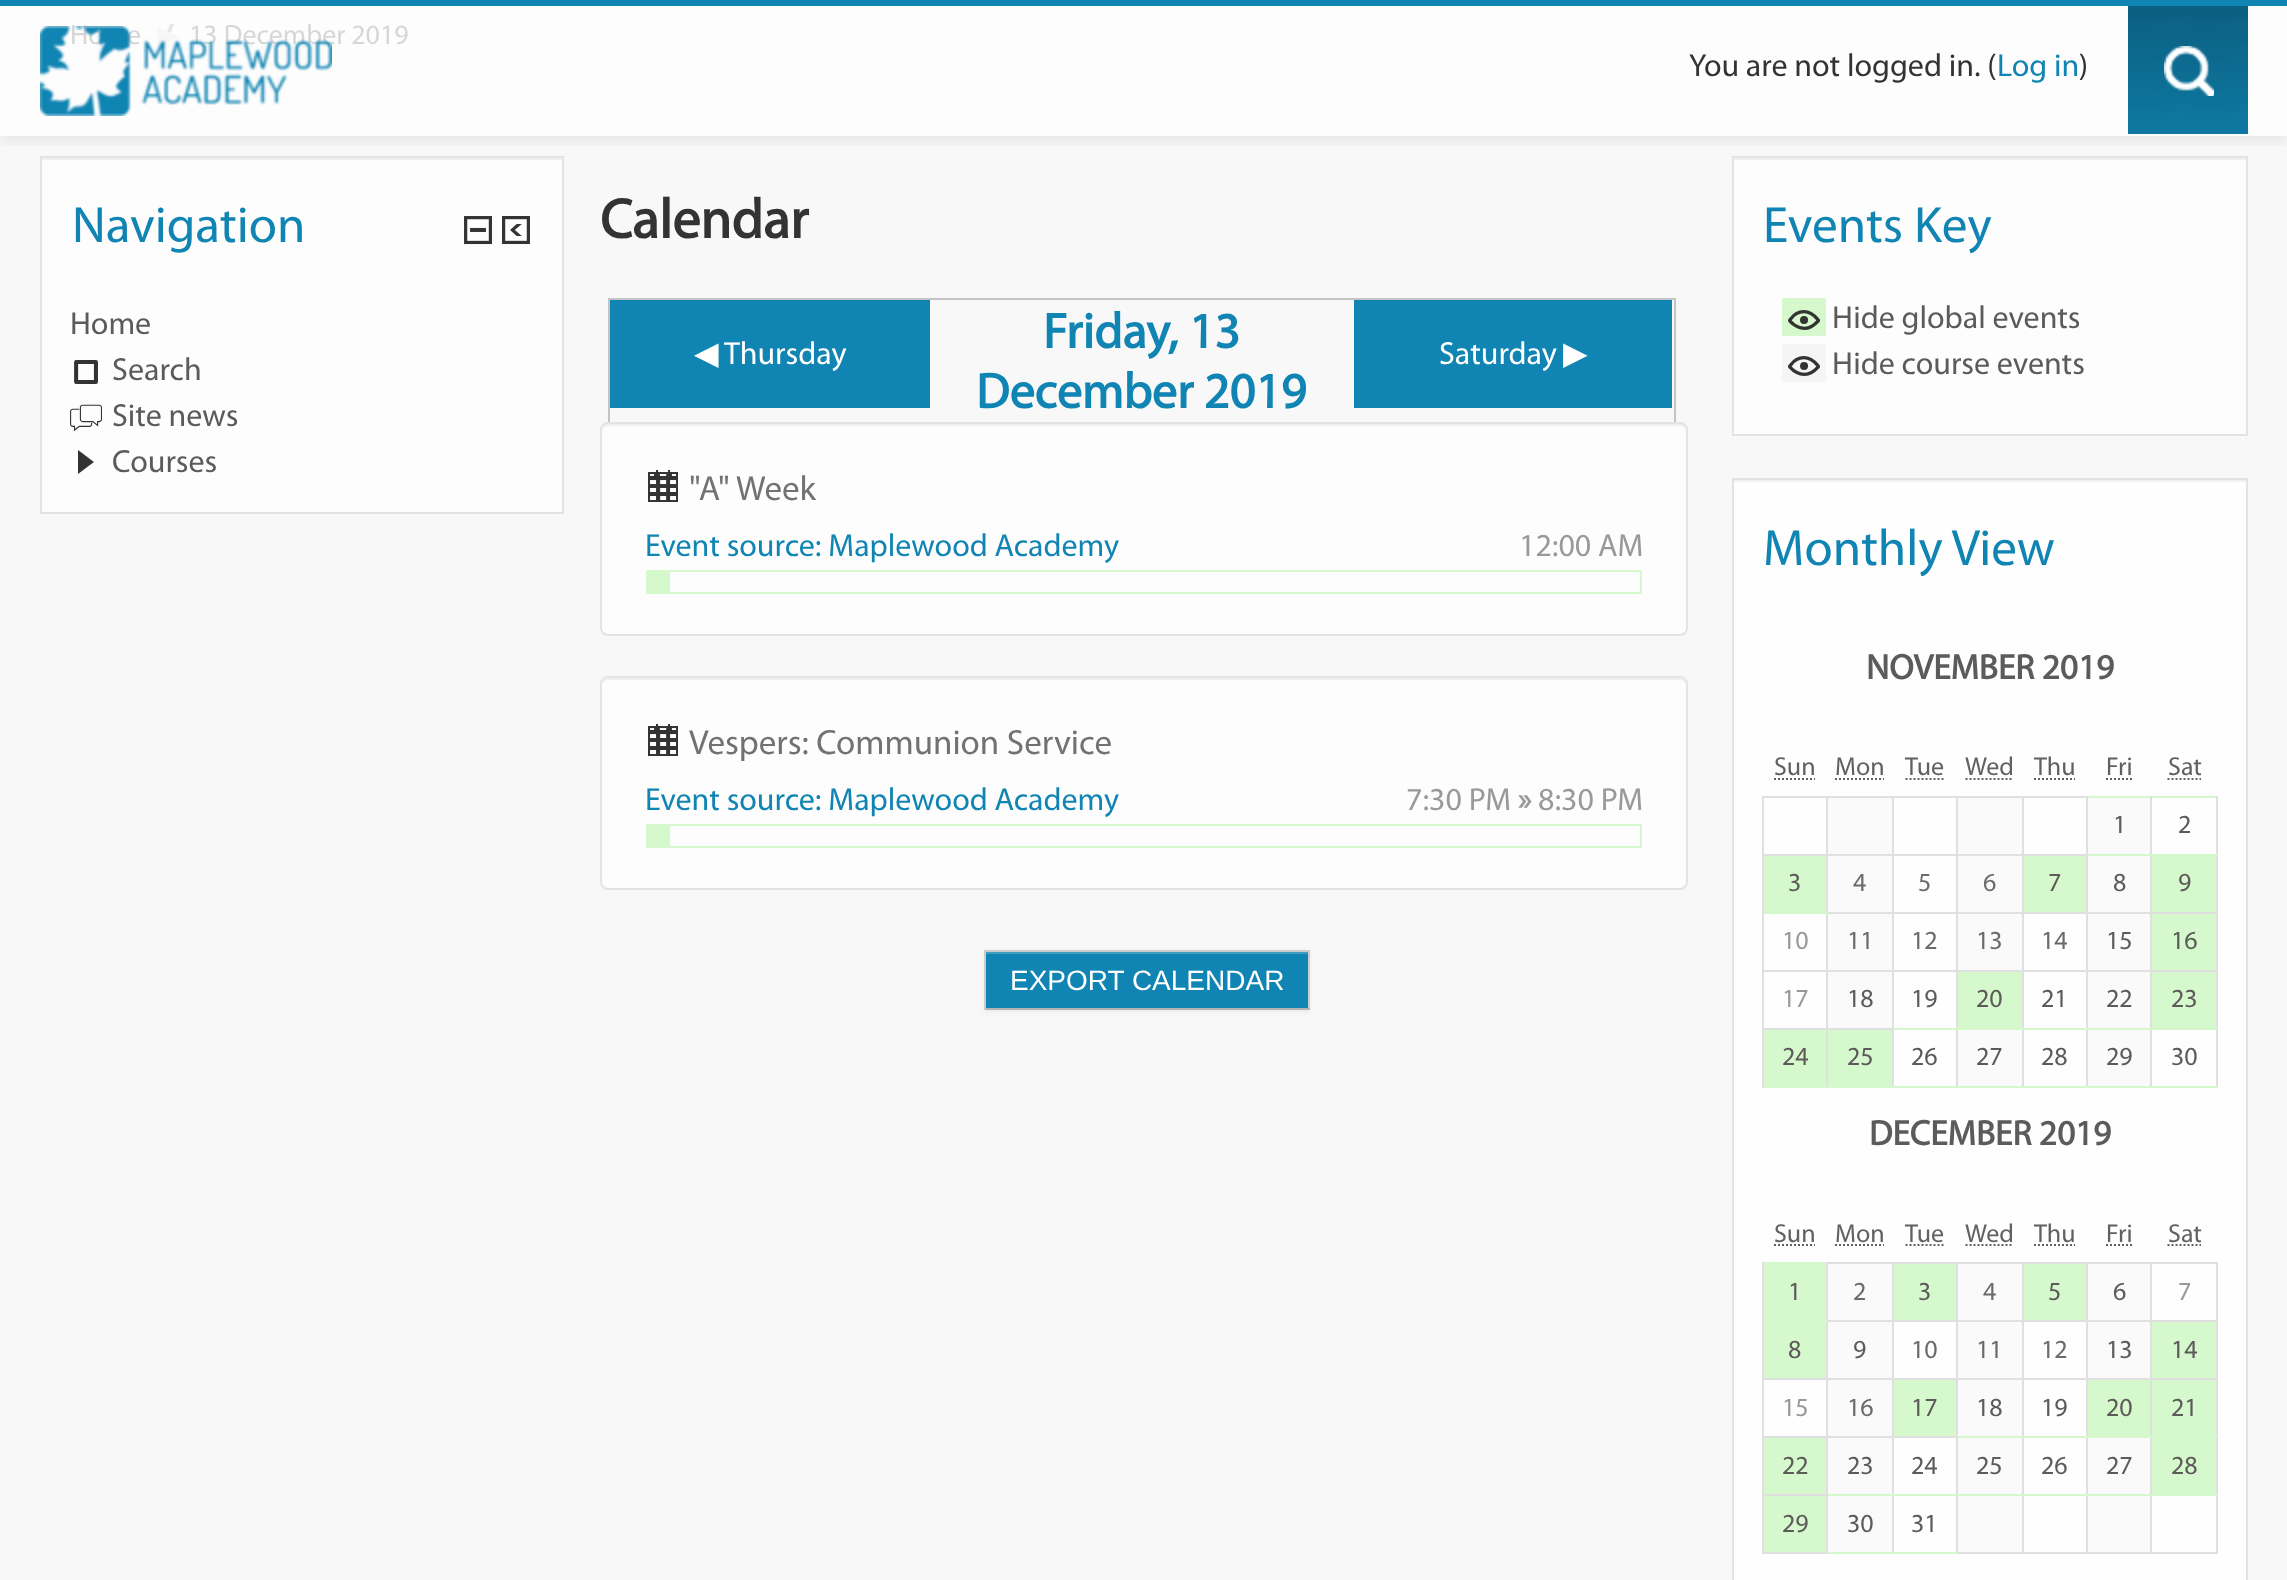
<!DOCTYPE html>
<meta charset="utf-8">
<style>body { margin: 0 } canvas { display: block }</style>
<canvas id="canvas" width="2287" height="1580"></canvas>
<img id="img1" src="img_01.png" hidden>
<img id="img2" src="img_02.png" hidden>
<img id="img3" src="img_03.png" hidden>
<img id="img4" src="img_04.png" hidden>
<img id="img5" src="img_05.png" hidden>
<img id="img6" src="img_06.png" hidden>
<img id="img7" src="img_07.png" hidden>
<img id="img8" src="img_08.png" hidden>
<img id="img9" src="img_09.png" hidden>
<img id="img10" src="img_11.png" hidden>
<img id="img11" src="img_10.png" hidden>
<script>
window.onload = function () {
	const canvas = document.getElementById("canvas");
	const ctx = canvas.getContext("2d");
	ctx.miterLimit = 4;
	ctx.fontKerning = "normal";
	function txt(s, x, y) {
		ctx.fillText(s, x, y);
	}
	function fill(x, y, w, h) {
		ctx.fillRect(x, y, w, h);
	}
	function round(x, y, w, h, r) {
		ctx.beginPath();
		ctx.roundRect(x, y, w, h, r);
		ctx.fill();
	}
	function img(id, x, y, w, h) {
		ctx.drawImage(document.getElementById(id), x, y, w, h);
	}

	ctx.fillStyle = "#F8F8F8";
	fill(0, 0, 2287, 1580);
	ctx.fillStyle = "#FDFDFD";
	fill(0, 6, 2287, 130);
	img("img1", 160, 24, 14, 24);
	fill(42, 160, 520, 352);
	ctx.fillStyle = "#F0F0F0";
	fill(42, 158, 520, 2);
	ctx.strokeStyle = "#E3E3E3";
	ctx.lineWidth = 2;
	ctx.strokeRect(41, 157, 522, 356);
	img("img2", 464, 216, 28, 29);
	img("img3", 502, 216, 28, 29);
	img("img4", 74, 360, 24, 24);
	img("img5", 70, 404, 32, 28);
	img("img6", 78, 450, 16, 24);
	ctx.fillStyle = "#C4C4C4";
	fill(608, 298, 1068, 2);
	fill(1674, 298, 2, 124);
	fill(608, 298, 2, 124);
	ctx.fillStyle = "#1084B2";
	fill(610, 300, 320, 108);
	fill(1354, 300, 318, 108);
	ctx.fillStyle = "#FDFDFD";
	round(600, 422, 1088, 214, 8);
	ctx.fillStyle = "#F0F0F0";
	ctx.beginPath();
	ctx.moveTo(608, 426);
	ctx.lineTo(1680, 426);
	ctx.bezierCurveTo(1683, 426, 1686, 429, 1686, 432);
	ctx.lineTo(1686, 430);
	ctx.bezierCurveTo(1686, 427, 1683, 424, 1680, 424);
	ctx.lineTo(608, 424);
	ctx.bezierCurveTo(605, 424, 602, 427, 602, 430);
	ctx.lineTo(602, 432);
	ctx.bezierCurveTo(602, 429, 605, 426, 608, 426);
	ctx.closePath();
	ctx.fill();
	ctx.beginPath();
	ctx.roundRect(601, 423, 1086, 212, 7);
	ctx.stroke();
	img("img7", 648, 470, 30, 32);
	ctx.fillStyle = "#D6F8CD";
	fill(670, 570, 972, 2);
	fill(1640, 570, 2, 24);
	fill(670, 592, 972, 2);
	fill(646, 570, 24, 24);
	ctx.fillStyle = "#FDFDFD";
	round(600, 676, 1088, 214, 8);
	ctx.fillStyle = "#F0F0F0";
	ctx.beginPath();
	ctx.moveTo(608, 680);
	ctx.lineTo(1680, 680);
	ctx.bezierCurveTo(1683, 680, 1686, 683, 1686, 686);
	ctx.lineTo(1686, 684);
	ctx.bezierCurveTo(1686, 681, 1683, 678, 1680, 678);
	ctx.lineTo(608, 678);
	ctx.bezierCurveTo(605, 678, 602, 681, 602, 684);
	ctx.lineTo(602, 686);
	ctx.bezierCurveTo(602, 683, 605, 680, 608, 680);
	ctx.closePath();
	ctx.fill();
	ctx.beginPath();
	ctx.roundRect(601, 677, 1086, 212, 7);
	ctx.stroke();
	img("img7", 648, 724, 30, 32);
	ctx.fillStyle = "#D6F8CD";
	fill(670, 824, 972, 2);
	fill(1640, 824, 2, 24);
	fill(670, 846, 972, 2);
	fill(646, 824, 24, 24);
	ctx.fillStyle = "rgba(0, 0, 0, 0.05)";
	ctx.filter = "blur(2px)";
	ctx.beginPath();
	ctx.rect(984, 952, 326, 60);
	ctx.fill();
	ctx.filter = "none";
	ctx.fillStyle = "#1084B2";
	fill(986, 954, 322, 54);
	ctx.fillStyle = "#409DC1";
	fill(986, 952, 322, 2);
	ctx.fillStyle = "#CCCCCC";
	fill(984, 950, 326, 2);
	fill(1308, 950, 2, 60);
	ctx.fillStyle = "#B3B3B3";
	fill(984, 1008, 326, 2);
	ctx.fillStyle = "#CCCCCC";
	fill(984, 950, 2, 60);
	ctx.fillStyle = "#FDFDFD";
	fill(1734, 160, 512, 274);
	ctx.fillStyle = "#F0F0F0";
	fill(1734, 158, 512, 2);
	ctx.strokeRect(1733, 157, 514, 278);
	ctx.fillStyle = "#D6F8CD";
	fill(1782, 298, 44, 38);
	img("img8", 1788, 310, 32, 20);
	ctx.fillStyle = "#F5F5F5";
	fill(1782, 344, 44, 38);
	img("img9", 1788, 356, 32, 20);
	ctx.fillStyle = "#FEFEFE";
	fill(1734, 482, 512, 1098);
	ctx.fillStyle = "#F1F1F1";
	fill(1734, 480, 512, 2);
	ctx.strokeRect(1733, 479, 514, 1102);
	ctx.beginPath();
	ctx.moveTo(1774, 779);
	ctx.lineTo(1815, 779);
	ctx.strokeStyle = "#616161";
	ctx.setLineDash([2, 2]);
	ctx.stroke();
	ctx.beginPath();
	ctx.moveTo(1835, 779);
	ctx.lineTo(1884, 779);
	ctx.stroke();
	ctx.beginPath();
	ctx.moveTo(1905.5, 779);
	ctx.lineTo(1944, 779);
	ctx.stroke();
	ctx.beginPath();
	ctx.moveTo(1965.5, 779);
	ctx.lineTo(2013.5, 779);
	ctx.stroke();
	ctx.beginPath();
	ctx.moveTo(2034, 779);
	ctx.lineTo(2075, 779);
	ctx.stroke();
	ctx.beginPath();
	ctx.moveTo(2106, 779);
	ctx.lineTo(2132.5, 779);
	ctx.stroke();
	ctx.beginPath();
	ctx.moveTo(2167.5, 779);
	ctx.lineTo(2201, 779);
	ctx.stroke();
	ctx.fillStyle = "#D6F8CD";
	fill(2086, 796, 132, 2);
	ctx.fillStyle = "#E0E0E0";
	fill(2150, 912, 68, 2);
	fill(2216, 970, 2, 118);
	fill(2216, 854, 2, 118);
	fill(2216, 796, 2, 60);
	ctx.fillStyle = "#D6F8CD";
	fill(2150, 1086, 68, 2);
	ctx.fillStyle = "#E0E0E0";
	fill(2150, 1028, 2, 60);
	ctx.fillStyle = "#D6F8CD";
	fill(2150, 1028, 68, 2);
	ctx.fillStyle = "#E0E0E0";
	fill(2150, 970, 2, 60);
	fill(2150, 970, 68, 2);
	fill(2150, 912, 2, 60);
	fill(2086, 912, 66, 2);
	fill(2150, 854, 2, 60);
	ctx.fillStyle = "#D6F8CD";
	fill(2150, 854, 68, 2);
	ctx.fillStyle = "#E0E0E0";
	fill(2150, 796, 2, 60);
	ctx.fillStyle = "#D6F8CD";
	fill(2086, 1086, 66, 2);
	ctx.fillStyle = "#E0E0E0";
	fill(2086, 1028, 2, 60);
	ctx.fillStyle = "#D6F8CD";
	fill(2086, 1028, 66, 2);
	ctx.fillStyle = "#E0E0E0";
	fill(2086, 970, 2, 60);
	fill(2086, 970, 66, 2);
	fill(2086, 912, 2, 60);
	fill(2022, 912, 66, 2);
	fill(2086, 854, 2, 60);
	fill(2022, 854, 66, 2);
	ctx.fillStyle = "#D6F8CD";
	fill(2086, 854, 66, 2);
	ctx.fillStyle = "#E0E0E0";
	fill(2086, 796, 2, 60);
	fill(2022, 796, 66, 2);
	ctx.fillStyle = "#D6F8CD";
	fill(2022, 1086, 66, 2);
	ctx.fillStyle = "#E0E0E0";
	fill(2022, 1028, 2, 60);
	ctx.fillStyle = "#D6F8CD";
	fill(2022, 1028, 66, 2);
	ctx.fillStyle = "#E0E0E0";
	fill(2022, 970, 2, 60);
	fill(2022, 970, 66, 2);
	fill(2022, 912, 2, 60);
	fill(1956, 912, 68, 2);
	fill(2022, 854, 2, 60);
	fill(1956, 854, 68, 2);
	fill(2022, 796, 2, 60);
	fill(1956, 796, 68, 2);
	ctx.fillStyle = "#D6F8CD";
	fill(1956, 1086, 68, 2);
	ctx.fillStyle = "#E0E0E0";
	fill(1956, 1028, 2, 60);
	ctx.fillStyle = "#D6F8CD";
	fill(1956, 1028, 68, 2);
	ctx.fillStyle = "#E0E0E0";
	fill(1956, 970, 2, 60);
	fill(1956, 970, 68, 2);
	fill(1956, 912, 2, 60);
	fill(1892, 912, 66, 2);
	fill(1956, 854, 2, 60);
	fill(1892, 854, 66, 2);
	fill(1956, 796, 2, 60);
	fill(1892, 796, 66, 2);
	ctx.fillStyle = "#D6F8CD";
	fill(1892, 1086, 66, 2);
	ctx.fillStyle = "#E0E0E0";
	fill(1892, 1028, 2, 60);
	ctx.fillStyle = "#D6F8CD";
	fill(1892, 1028, 66, 2);
	ctx.fillStyle = "#E0E0E0";
	fill(1892, 970, 2, 60);
	fill(1826, 970, 68, 2);
	fill(1892, 970, 66, 2);
	fill(1892, 912, 2, 60);
	fill(1826, 912, 68, 2);
	fill(1892, 854, 2, 60);
	fill(1826, 854, 68, 2);
	fill(1892, 796, 2, 60);
	fill(1826, 796, 68, 2);
	ctx.fillStyle = "#D6F8CD";
	fill(1826, 1086, 68, 2);
	ctx.fillStyle = "#E0E0E0";
	fill(1826, 1028, 2, 60);
	fill(1826, 1028, 68, 2);
	fill(1826, 970, 2, 60);
	fill(1762, 970, 66, 2);
	fill(1826, 912, 2, 60);
	fill(1826, 854, 2, 60);
	fill(1826, 796, 2, 60);
	fill(1762, 796, 66, 2);
	ctx.fillStyle = "#D6F8CD";
	fill(1762, 1086, 66, 2);
	ctx.fillStyle = "#E0E0E0";
	fill(1762, 1028, 2, 60);
	fill(1762, 1028, 66, 2);
	fill(1762, 912, 2, 118);
	ctx.fillStyle = "#D6F8CD";
	fill(1762, 912, 66, 2);
	ctx.fillStyle = "#E0E0E0";
	fill(1762, 854, 2, 60);
	fill(1762, 854, 66, 2);
	fill(1762, 796, 2, 60);
	ctx.fillStyle = "#FAFAFA";
	fill(1828, 798, 64, 56);
	fill(1958, 798, 64, 56);
	fill(2088, 798, 62, 56);
	ctx.fillStyle = "#D6F8CD";
	fill(1764, 856, 62, 56);
	ctx.fillStyle = "#FAFAFA";
	fill(1828, 856, 64, 56);
	fill(1958, 856, 64, 56);
	ctx.fillStyle = "#D6F8CD";
	fill(2024, 856, 62, 56);
	ctx.fillStyle = "#FAFAFA";
	fill(2088, 856, 62, 56);
	ctx.fillStyle = "#D6F8CD";
	fill(2152, 856, 64, 56);
	ctx.fillStyle = "#FAFAFA";
	fill(1828, 914, 64, 56);
	fill(1958, 914, 64, 56);
	fill(2088, 914, 62, 56);
	ctx.fillStyle = "#D6F8CD";
	fill(2152, 914, 64, 56);
	ctx.fillStyle = "#FAFAFA";
	fill(1828, 972, 64, 56);
	ctx.fillStyle = "#D6F8CD";
	fill(1958, 972, 64, 56);
	ctx.fillStyle = "#FAFAFA";
	fill(2088, 972, 62, 56);
	ctx.fillStyle = "#D6F8CD";
	fill(2152, 972, 64, 56);
	fill(1764, 1030, 62, 56);
	fill(1828, 1030, 64, 56);
	ctx.fillStyle = "#FAFAFA";
	fill(1958, 1030, 64, 56);
	fill(2088, 1030, 62, 56);
	ctx.beginPath();
	ctx.moveTo(1774, 1245);
	ctx.lineTo(1815, 1245);
	ctx.stroke();
	ctx.beginPath();
	ctx.moveTo(1835, 1245);
	ctx.lineTo(1884, 1245);
	ctx.stroke();
	ctx.beginPath();
	ctx.moveTo(1905.5, 1245);
	ctx.lineTo(1944, 1245);
	ctx.stroke();
	ctx.beginPath();
	ctx.moveTo(1965.5, 1245);
	ctx.lineTo(2013.5, 1245);
	ctx.stroke();
	ctx.beginPath();
	ctx.moveTo(2034, 1245);
	ctx.lineTo(2075, 1245);
	ctx.stroke();
	ctx.beginPath();
	ctx.moveTo(2106, 1245);
	ctx.lineTo(2132.5, 1245);
	ctx.stroke();
	ctx.beginPath();
	ctx.moveTo(2167.5, 1245);
	ctx.lineTo(2201, 1245);
	ctx.stroke();
	ctx.fillStyle = "#D6F8CD";
	fill(1764, 1264, 62, 56);
	ctx.fillStyle = "#E0E0E0";
	fill(2150, 1262, 68, 2);
	fill(2150, 1320, 68, 2);
	fill(2216, 1378, 2, 176);
	fill(2216, 1320, 2, 60);
	fill(2150, 1552, 68, 2);
	fill(2150, 1494, 2, 60);
	ctx.fillStyle = "#D6F8CD";
	fill(2150, 1494, 68, 2);
	ctx.fillStyle = "#E0E0E0";
	fill(2150, 1436, 2, 60);
	ctx.fillStyle = "#D6F8CD";
	fill(2150, 1436, 68, 2);
	ctx.fillStyle = "#E0E0E0";
	fill(2150, 1378, 2, 60);
	fill(2150, 1378, 68, 2);
	fill(2150, 1320, 2, 60);
	fill(2086, 1320, 66, 2);
	fill(2150, 1262, 2, 60);
	fill(2086, 1262, 66, 2);
	fill(2086, 1552, 66, 2);
	fill(2086, 1494, 2, 60);
	ctx.fillStyle = "#D6F8CD";
	fill(2086, 1494, 66, 2);
	ctx.fillStyle = "#E0E0E0";
	fill(2086, 1436, 2, 60);
	ctx.fillStyle = "#D6F8CD";
	fill(2086, 1436, 66, 2);
	ctx.fillStyle = "#E0E0E0";
	fill(2086, 1378, 2, 60);
	fill(2086, 1378, 66, 2);
	fill(2086, 1320, 2, 60);
	fill(2022, 1320, 66, 2);
	fill(2086, 1262, 2, 60);
	fill(2022, 1262, 66, 2);
	fill(2022, 1552, 66, 2);
	fill(2022, 1494, 2, 60);
	ctx.fillStyle = "#D6F8CD";
	fill(2022, 1494, 66, 2);
	ctx.fillStyle = "#E0E0E0";
	fill(2022, 1436, 2, 60);
	ctx.fillStyle = "#D6F8CD";
	fill(2022, 1436, 66, 2);
	ctx.fillStyle = "#E0E0E0";
	fill(2022, 1378, 2, 60);
	fill(2022, 1378, 66, 2);
	fill(2022, 1320, 2, 60);
	fill(1956, 1320, 68, 2);
	fill(2022, 1262, 2, 60);
	fill(1956, 1262, 68, 2);
	fill(1956, 1552, 68, 2);
	fill(1956, 1494, 2, 60);
	ctx.fillStyle = "#D6F8CD";
	fill(1956, 1494, 68, 2);
	ctx.fillStyle = "#E0E0E0";
	fill(1956, 1436, 2, 60);
	ctx.fillStyle = "#D6F8CD";
	fill(1956, 1436, 68, 2);
	ctx.fillStyle = "#E0E0E0";
	fill(1956, 1378, 2, 60);
	fill(1892, 1378, 66, 2);
	fill(1956, 1378, 68, 2);
	fill(1956, 1320, 2, 60);
	fill(1892, 1320, 66, 2);
	fill(1956, 1262, 2, 60);
	fill(1892, 1262, 66, 2);
	ctx.fillStyle = "#D6F8CD";
	fill(1892, 1552, 66, 2);
	ctx.fillStyle = "#E0E0E0";
	fill(1892, 1494, 2, 60);
	ctx.fillStyle = "#D6F8CD";
	fill(1892, 1494, 66, 2);
	ctx.fillStyle = "#E0E0E0";
	fill(1892, 1436, 2, 60);
	fill(1892, 1436, 66, 2);
	fill(1892, 1378, 2, 60);
	fill(1826, 1378, 68, 2);
	fill(1892, 1320, 2, 60);
	fill(1826, 1320, 68, 2);
	fill(1892, 1262, 2, 60);
	fill(1826, 1262, 68, 2);
	ctx.fillStyle = "#D6F8CD";
	fill(1762, 1262, 66, 2);
	fill(1826, 1552, 68, 2);
	ctx.fillStyle = "#E0E0E0";
	fill(1826, 1494, 2, 60);
	fill(1762, 1494, 66, 2);
	ctx.fillStyle = "#D6F8CD";
	fill(1826, 1494, 68, 2);
	ctx.fillStyle = "#E0E0E0";
	fill(1826, 1436, 2, 60);
	fill(1762, 1436, 66, 2);
	fill(1826, 1436, 68, 2);
	fill(1826, 1378, 2, 60);
	fill(1762, 1378, 66, 2);
	fill(1826, 1320, 2, 60);
	fill(1826, 1262, 2, 60);
	fill(1762, 1552, 66, 2);
	fill(1762, 1494, 2, 60);
	fill(1762, 1436, 2, 60);
	fill(1762, 1320, 2, 118);
	ctx.fillStyle = "#D6F8CD";
	fill(1762, 1320, 66, 2);
	ctx.fillStyle = "#E0E0E0";
	fill(1762, 1262, 2, 60);
	ctx.fillStyle = "#FAFAFA";
	fill(1828, 1264, 64, 56);
	ctx.fillStyle = "#D6F8CD";
	fill(1894, 1264, 62, 56);
	ctx.fillStyle = "#FAFAFA";
	fill(1958, 1264, 64, 56);
	ctx.fillStyle = "#D6F8CD";
	fill(2024, 1264, 62, 56);
	ctx.fillStyle = "#FAFAFA";
	fill(2088, 1264, 62, 56);
	ctx.fillStyle = "#E0E0E0";
	fill(2216, 1262, 2, 60);
	ctx.fillStyle = "#D6F8CD";
	fill(1764, 1322, 62, 56);
	ctx.fillStyle = "#FAFAFA";
	fill(1828, 1322, 64, 56);
	fill(1958, 1322, 64, 56);
	fill(2088, 1322, 62, 56);
	ctx.fillStyle = "#D6F8CD";
	fill(2152, 1322, 64, 56);
	ctx.fillStyle = "#FAFAFA";
	fill(1828, 1380, 64, 56);
	ctx.fillStyle = "#D6F8CD";
	fill(1894, 1380, 62, 56);
	ctx.fillStyle = "#FAFAFA";
	fill(1958, 1380, 64, 56);
	ctx.fillStyle = "#D6F8CD";
	fill(2088, 1380, 62, 56);
	fill(2152, 1380, 64, 56);
	fill(1764, 1438, 62, 56);
	ctx.fillStyle = "#FAFAFA";
	fill(1828, 1438, 64, 56);
	fill(1958, 1438, 64, 56);
	fill(2088, 1438, 62, 56);
	ctx.fillStyle = "#D6F8CD";
	fill(2152, 1438, 64, 56);
	fill(1764, 1496, 62, 56);
	ctx.fillStyle = "#FAFAFA";
	fill(1828, 1496, 64, 56);
	fill(1958, 1496, 64, 56);
	fill(2088, 1496, 62, 56);
	ctx.save();
	ctx.beginPath();
	ctx.rect(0, 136, 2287, 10);
	ctx.clip();
	ctx.fillStyle = "rgba(0, 0, 0, 0.1)";
	ctx.filter = "blur(10px)";
	ctx.beginPath();
	ctx.rect(0, 2, 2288, 136);
	ctx.fill();
	ctx.filter = "none";
	ctx.restore();
	ctx.fillStyle = "#1084B2";
	fill(0, 0, 2287, 6);
	fill(2128, 6, 120, 128);
	img("img10", 2128, 6, 120, 128);
	ctx.font = "28px Myriad";
	ctx.fillStyle = "#D7D7D7";
	txt("Home", 70, 44);
	ctx.font = "28px DejaVu Sans";
	ctx.fillStyle = "#F7F7F7";
	txt("▶︎", 157, 44);
	ctx.font = "28px Myriad";
	ctx.fillStyle = "#D7D7D7";
	txt("13 December 2019", 189, 44);
	ctx.font = "51.25px Myriad";
	ctx.fillStyle = "#1084B2";
	txt("Navigation", 72, 242);
	ctx.font = "32px Myriad";
	ctx.fillStyle = "#5D5A5A";
	txt("Home", 70, 334);
	txt("Search", 112, 380);
	txt("Site news", 112, 426);
	txt("Courses", 112, 472);
	ctx.font = "bold 56px Myriad";
	ctx.fillStyle = "#333333";
	txt("Calendar", 600, 238);
	ctx.font = "32px DejaVu Sans";
	ctx.fillStyle = "#FFFFFF";
	txt("◀︎", 694, 364);
	ctx.font = "32px Myriad";
	txt("Thursday", 724, 364);
	ctx.font = "bold 50px Myriad";
	ctx.fillStyle = "#1084B2";
	txt("Friday, 13", 1043, 348);
	txt("December 2019", 976, 408);
	ctx.font = "32px Myriad";
	ctx.fillStyle = "#FFFFFF";
	txt("Saturday", 1439, 364);
	ctx.font = "32px DejaVu Sans";
	txt("▶︎", 1563, 364);
	ctx.font = "35px Myriad";
	ctx.fillStyle = "#727272";
	txt("\"A\" Week", 689, 500);
	ctx.font = "32px Myriad";
	ctx.fillStyle = "#1084B2";
	txt("Event source: Maplewood Academy", 645, 556);
	ctx.fillStyle = "#999999";
	txt("12:00 AM", 1519, 556);
	ctx.font = "35px Myriad";
	ctx.fillStyle = "#727272";
	txt("Vespers: Communion Service", 689, 754);
	ctx.font = "32px Myriad";
	ctx.fillStyle = "#1084B2";
	txt("Event source: Maplewood Academy", 645, 810);
	ctx.fillStyle = "#999999";
	txt("7:30 PM", 1406, 810);
	ctx.font = "bold 32px Myriad";
	txt("»", 1518, 810);
	ctx.font = "32px Myriad";
	txt("8:30 PM", 1538, 810);
	ctx.font = "28px Liberation Sans";
	ctx.fillStyle = "#FFFFFF";
	txt("EXPORT CALENDAR", 1010, 990);
	ctx.font = "51.25px Myriad";
	ctx.fillStyle = "#1084B2";
	txt("Events Key", 1763, 242);
	ctx.font = "32px Myriad";
	ctx.fillStyle = "#5D5A5A";
	txt("Hide global events", 1832, 328);
	txt("Hide course events", 1832, 374);
	ctx.font = "51.25px Myriad";
	ctx.fillStyle = "#1084B2";
	txt("Monthly View", 1763, 565);
	ctx.font = "bold 35.25px Myriad";
	ctx.fillStyle = "#5D5A5A";
	txt("NOVEMBER 2019", 1866, 679);
	ctx.font = "26px Myriad";
	ctx.fillStyle = "#616161";
	txt("Sun", 1774, 775);
	txt("Mon", 1835, 775);
	txt("Tue", 1905, 775);
	txt("Wed", 1965, 775);
	txt("Thu", 2034, 775);
	txt("Fri", 2106, 775);
	txt("Sat", 2168, 775);
	ctx.fillStyle = "#5D5A5A";
	txt("1", 2113, 833);
	txt("2", 2178, 833);
	txt("3", 1788, 891);
	ctx.fillStyle = "#6B6B6B";
	txt("4", 1853, 891);
	txt("5", 1918, 891);
	txt("6", 1983, 891);
	ctx.fillStyle = "#5D5A5A";
	txt("7", 2048, 891);
	txt("8", 2113, 891);
	txt("9", 2178, 891);
	ctx.fillStyle = "#999999";
	txt("10", 1782, 949);
	ctx.fillStyle = "#6B6B6B";
	txt("11", 1847, 949);
	txt("12", 1911, 949);
	txt("13", 1976, 949);
	txt("14", 2041, 949);
	ctx.fillStyle = "#5D5A5A";
	txt("15", 2106, 949);
	txt("16", 2171, 949);
	ctx.fillStyle = "#999999";
	txt("17", 1782, 1007);
	ctx.fillStyle = "#5D5A5A";
	txt("18", 1847, 1007);
	txt("19", 1911, 1007);
	txt("20", 1976, 1007);
	txt("21", 2041, 1007);
	txt("22", 2106, 1007);
	txt("23", 2171, 1007);
	txt("24", 1782, 1065);
	txt("25", 1847, 1065);
	txt("26", 1911, 1065);
	txt("27", 1976, 1065);
	txt("28", 2041, 1065);
	txt("29", 2106, 1065);
	txt("30", 2171, 1065);
	ctx.font = "bold 35.25px Myriad";
	txt("DECEMBER 2019", 1869, 1145);
	ctx.font = "26px Myriad";
	ctx.fillStyle = "#616161";
	txt("Sun", 1774, 1242);
	txt("Mon", 1835, 1242);
	txt("Tue", 1905, 1242);
	txt("Wed", 1965, 1242);
	txt("Thu", 2034, 1242);
	txt("Fri", 2106, 1242);
	txt("Sat", 2168, 1242);
	ctx.fillStyle = "#5D5A5A";
	txt("1", 1788, 1300);
	ctx.fillStyle = "#6B6B6B";
	txt("2", 1853, 1300);
	ctx.fillStyle = "#5D5A5A";
	txt("3", 1918, 1300);
	ctx.fillStyle = "#6B6B6B";
	txt("4", 1983, 1300);
	ctx.fillStyle = "#5D5A5A";
	txt("5", 2048, 1300);
	txt("6", 2113, 1300);
	ctx.fillStyle = "#999999";
	txt("7", 2178, 1300);
	ctx.fillStyle = "#5D5A5A";
	txt("8", 1788, 1358);
	txt("9", 1853, 1358);
	ctx.fillStyle = "#6B6B6B";
	txt("10", 1911, 1358);
	txt("11", 1976, 1358);
	txt("12", 2041, 1358);
	ctx.fillStyle = "#5D5A5A";
	txt("13", 2106, 1358);
	txt("14", 2171, 1358);
	ctx.fillStyle = "#999999";
	txt("15", 1782, 1416);
	ctx.fillStyle = "#6B6B6B";
	txt("16", 1847, 1416);
	ctx.fillStyle = "#5D5A5A";
	txt("17", 1911, 1416);
	txt("18", 1976, 1416);
	txt("19", 2041, 1416);
	txt("20", 2106, 1416);
	txt("21", 2171, 1416);
	txt("22", 1782, 1474);
	txt("23", 1847, 1474);
	txt("24", 1911, 1474);
	txt("25", 1976, 1474);
	txt("26", 2041, 1474);
	txt("27", 2106, 1474);
	txt("28", 2171, 1474);
	txt("29", 1782, 1532);
	txt("30", 1847, 1532);
	txt("31", 1911, 1532);
	img("img11", 40, 26, 292, 90);
	ctx.font = "32px Myriad";
	ctx.fillStyle = "#333333";
	txt("You are not logged in. (", 1689, 76);
	ctx.fillStyle = "#1084B2";
	txt("Log in", 1997, 76);
	ctx.fillStyle = "#333333";
	txt(")", 2079, 76);
};
</script>
